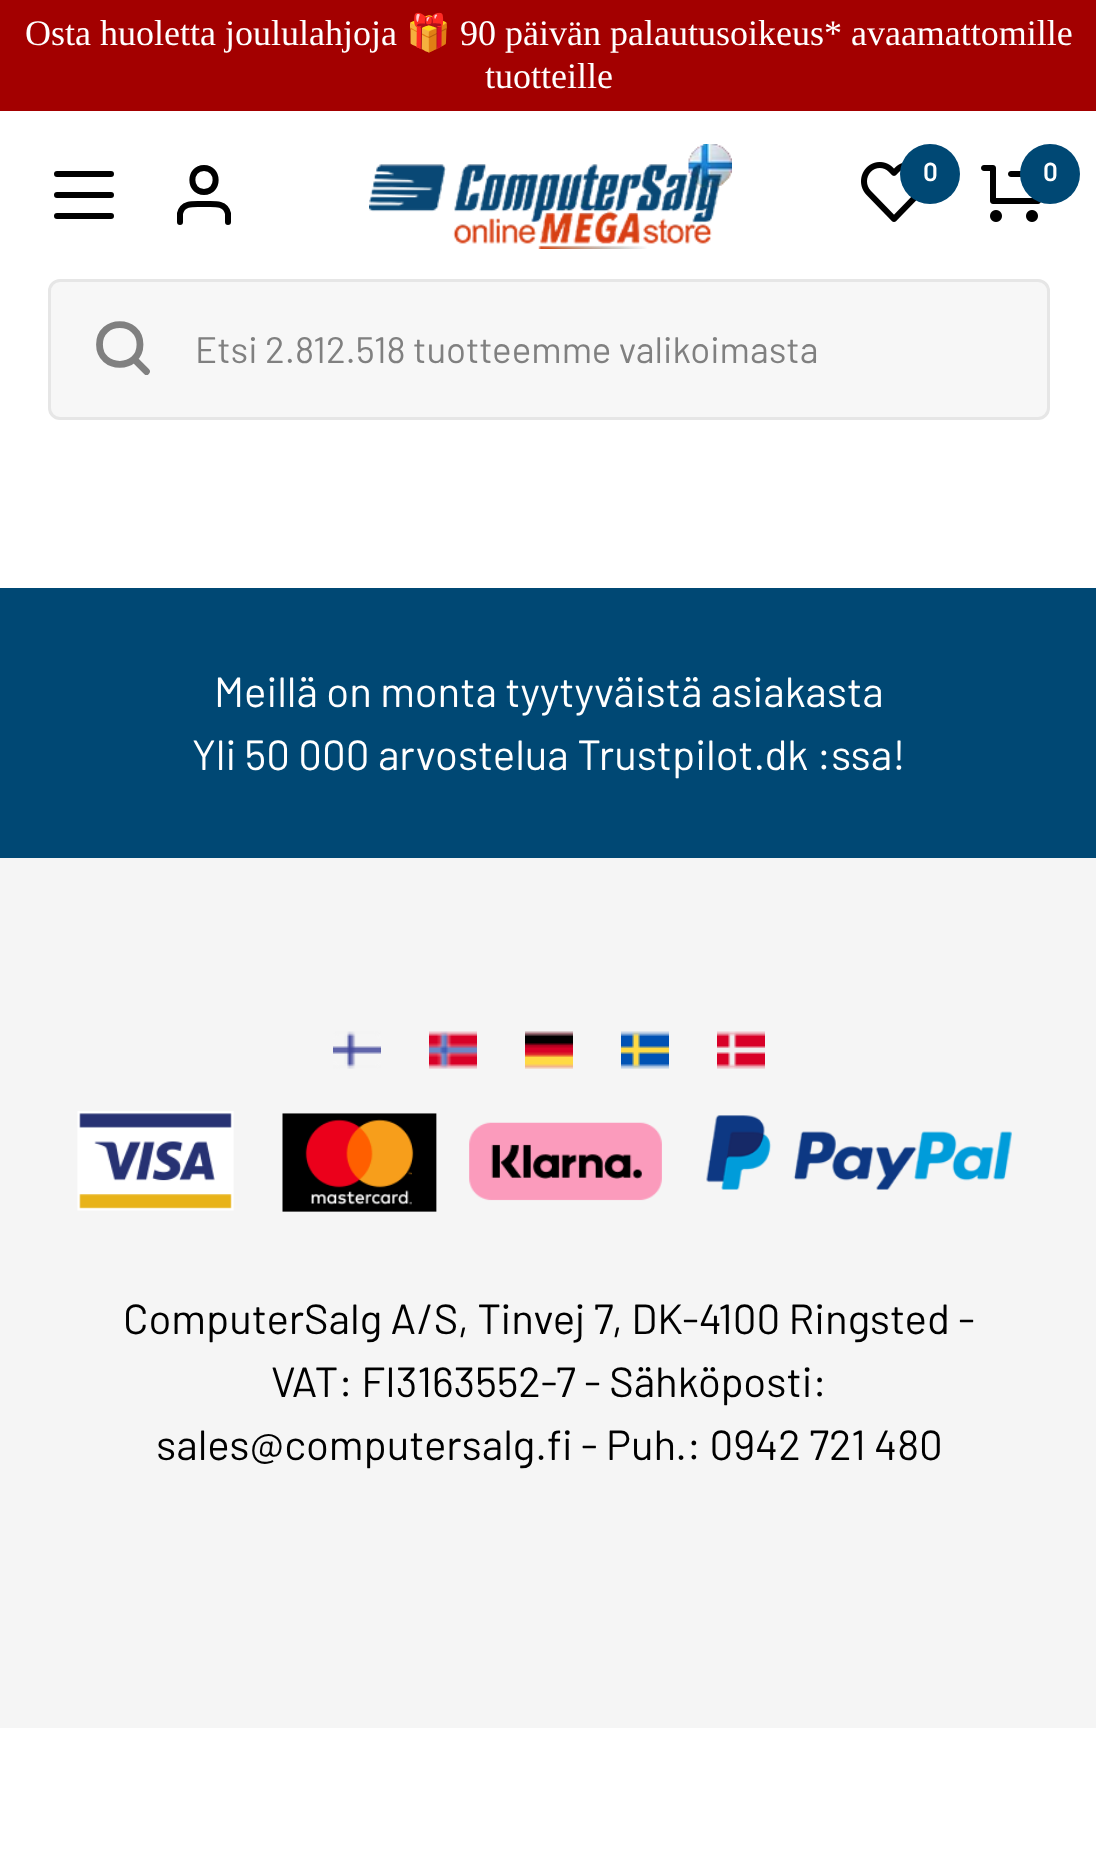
<!DOCTYPE html>
<meta charset="utf-8">
<style>body { margin: 0 } canvas { display: block }</style>
<canvas id="canvas" width="1096" height="1849"></canvas>
<img id="img1" src="img_01.png" hidden>
<img id="img2" src="img_02.png" hidden>
<img id="img3" src="img_03.png" hidden>
<img id="img4" src="img_04.png" hidden>
<img id="img5" src="img_05.png" hidden>
<img id="img6" src="img_06.png" hidden>
<img id="img7" src="img_07.png" hidden>
<img id="img8" src="img_08.png" hidden>
<img id="img9" src="img_09.png" hidden>
<img id="img10" src="img_10.png" hidden>
<img id="img11" src="img_11.png" hidden>
<img id="img12" src="img_12.png" hidden>
<script>
window.onload = function () {
	const canvas = document.getElementById("canvas");
	const ctx = canvas.getContext("2d");
	ctx.miterLimit = 4;
	ctx.fontKerning = "normal";
	function txt(s, x, y) {
		ctx.fillText(s, x, y);
	}
	function fill(x, y, w, h) {
		ctx.fillRect(x, y, w, h);
	}
	function img(id, x, y, w, h) {
		ctx.drawImage(document.getElementById(id), x, y, w, h);
	}

	ctx.fillStyle = "#FFFFFF";
	fill(0, 0, 1096, 1849);
	ctx.fillStyle = "#A30000";
	fill(0, 0, 1096, 111);
	ctx.beginPath();
	ctx.moveTo(57, 195);
	ctx.lineTo(111, 195);
	ctx.moveTo(57, 174);
	ctx.lineTo(111, 174);
	ctx.moveTo(57, 216);
	ctx.lineTo(111, 216);
	ctx.strokeStyle = "#000000";
	ctx.lineWidth = 6;
	ctx.lineCap = "round";
	ctx.lineJoin = "round";
	ctx.stroke();
	ctx.beginPath();
	ctx.moveTo(228, 222);
	ctx.lineTo(228, 213.5);
	ctx.bezierCurveTo(225.5, 202, 213, 204, 204, 204);
	ctx.bezierCurveTo(195, 204, 182.5, 202, 180, 213.5);
	ctx.lineTo(180, 222);
	ctx.moveTo(204, 192);
	ctx.bezierCurveTo(219.5, 192, 219.5, 168, 204, 168);
	ctx.bezierCurveTo(188.5, 168, 188.5, 192, 204, 192);
	ctx.closePath();
	ctx.stroke();
	img("img1", 369, 144, 363, 105);
	img("img2", 861, 162, 56, 60);
	ctx.fillStyle = "#004874";
	ctx.beginPath();
	ctx.arc(930, 174, 30, 0, Math.PI * 2);
	ctx.fill();
	img("img3", 981, 165, 60, 57);
	ctx.beginPath();
	ctx.arc(1050, 174, 30, 0, Math.PI * 2);
	ctx.fill();
	ctx.fillStyle = "#F7F7F7";
	ctx.beginPath();
	ctx.roundRect(49.5, 280.5, 999, 138, 10.5);
	ctx.fill();
	ctx.strokeStyle = "#E6E6E6";
	ctx.lineWidth = 3;
	ctx.lineJoin = "miter";
	ctx.stroke();
	ctx.beginPath();
	ctx.moveTo(146.5, 371.5);
	ctx.lineTo(135, 360);
	ctx.moveTo(140, 344.5);
	ctx.bezierCurveTo(140, 371, 99.5, 371, 99.5, 344.5);
	ctx.bezierCurveTo(99.5, 318, 140, 318, 140, 344.5);
	ctx.closePath();
	ctx.strokeStyle = "#808080";
	ctx.lineWidth = 6.8;
	ctx.lineJoin = "round";
	ctx.stroke();
	ctx.fillStyle = "#F5F5F5";
	fill(0, 858, 1096, 870);
	ctx.fillStyle = "#004874";
	fill(0, 588, 1096, 270);
	img("img4", 333, 1031, 48, 38);
	img("img5", 429, 1031, 48, 38);
	img("img6", 525, 1031, 48, 38);
	img("img7", 621, 1031, 48, 38);
	img("img8", 717, 1031, 48, 38);
	img("img9", 77, 1111, 157, 100);
	img("img10", 282, 1113, 155, 99);
	img("img11", 469, 1122, 193, 79);
	img("img12", 706, 1115, 306, 75);
	ctx.font = "36px Liberation Serif";
	ctx.fillStyle = "#FFFFFF";
	txt("Osta huoletta joululahjoja", 25, 45);
	ctx.font = "36px Noto Color Emoji";
	txt("🎁", 406, 45);
	ctx.font = "36px Liberation Serif";
	txt("90 päivän palautusoikeus* avaamattomille", 460, 45);
	txt("tuotteille", 485, 88);
	ctx.font = "600 26px Barlow";
	txt("0", 923, 181);
	txt("0", 1043, 181);
	ctx.font = "36.75px Barlow";
	ctx.fillStyle = "#808080";
	txt("Etsi 2.812.518 tuotteemme valikoimasta", 195, 363);
	ctx.font = "42px Barlow";
	ctx.fillStyle = "#FFFFFF";
	txt("Meillä on monta tyytyväistä asiakasta", 214, 707);
	txt("Yli 50 000 arvostelua Trustpilot.dk :ssa!", 192, 770);
	ctx.fillStyle = "#000000";
	txt("ComputerSalg A/S, Tinvej 7, DK-4100 Ringsted -", 123, 1334);
	txt("VAT: FI3163552-7 - Sähköposti:", 271, 1397);
	txt("sales@computersalg.fi - Puh.: 0942 721 480", 156, 1460);
};
</script>
